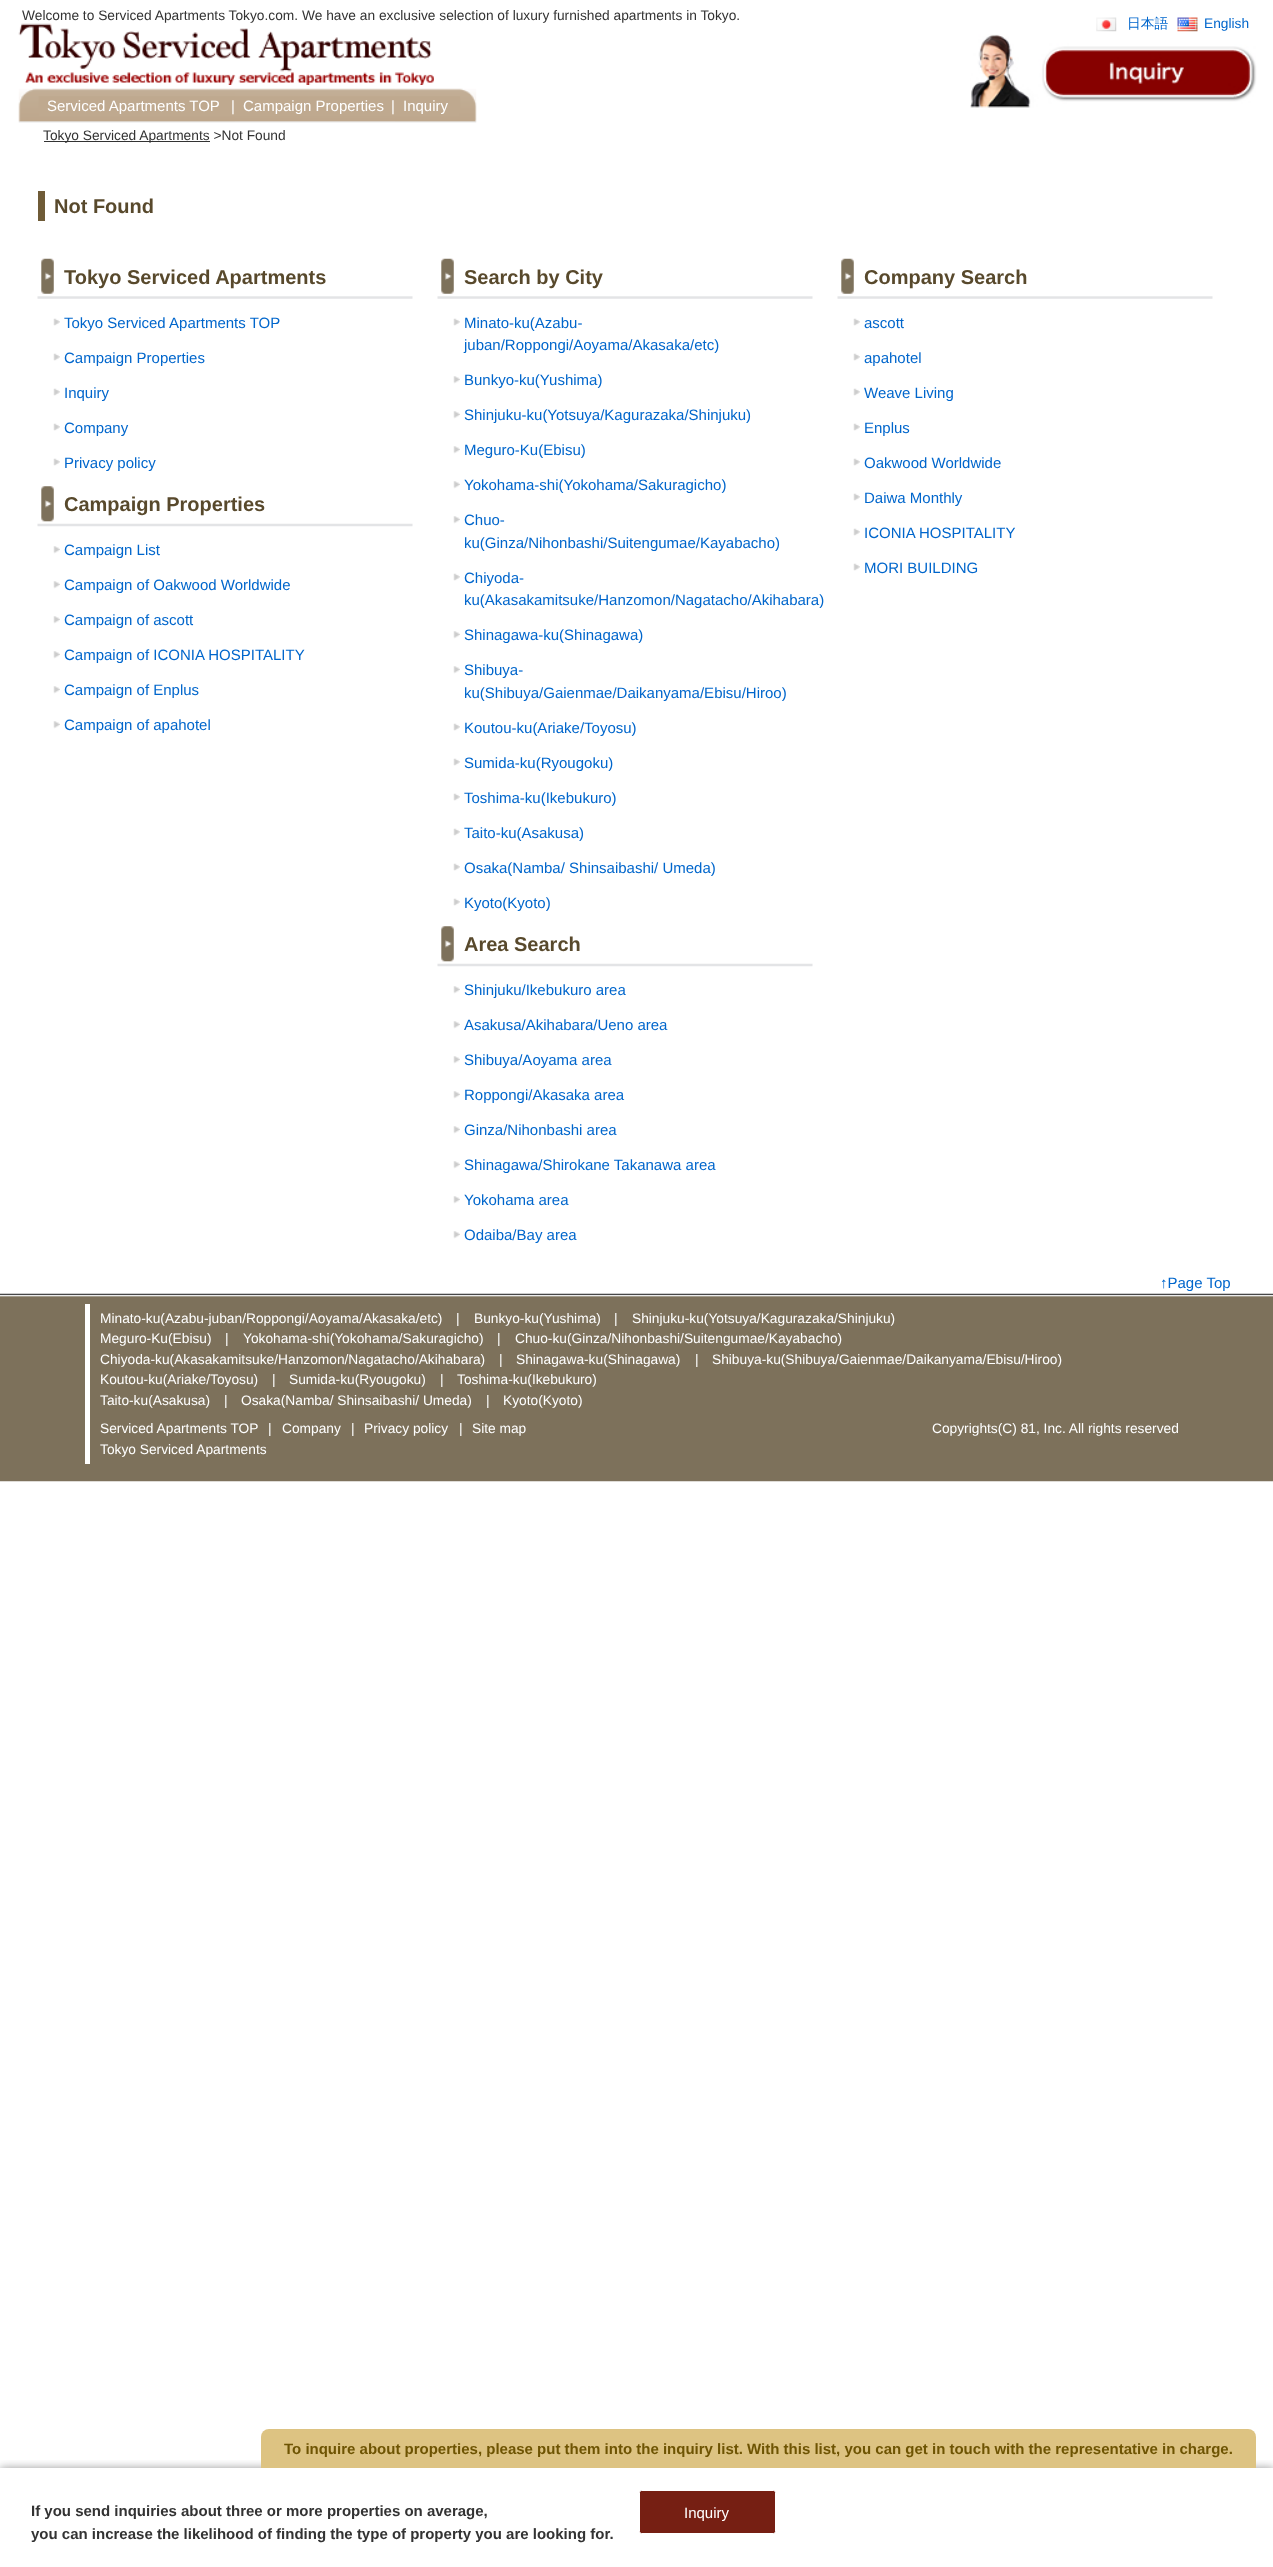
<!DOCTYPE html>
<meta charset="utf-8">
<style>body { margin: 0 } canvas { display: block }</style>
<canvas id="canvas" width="1273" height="2567"></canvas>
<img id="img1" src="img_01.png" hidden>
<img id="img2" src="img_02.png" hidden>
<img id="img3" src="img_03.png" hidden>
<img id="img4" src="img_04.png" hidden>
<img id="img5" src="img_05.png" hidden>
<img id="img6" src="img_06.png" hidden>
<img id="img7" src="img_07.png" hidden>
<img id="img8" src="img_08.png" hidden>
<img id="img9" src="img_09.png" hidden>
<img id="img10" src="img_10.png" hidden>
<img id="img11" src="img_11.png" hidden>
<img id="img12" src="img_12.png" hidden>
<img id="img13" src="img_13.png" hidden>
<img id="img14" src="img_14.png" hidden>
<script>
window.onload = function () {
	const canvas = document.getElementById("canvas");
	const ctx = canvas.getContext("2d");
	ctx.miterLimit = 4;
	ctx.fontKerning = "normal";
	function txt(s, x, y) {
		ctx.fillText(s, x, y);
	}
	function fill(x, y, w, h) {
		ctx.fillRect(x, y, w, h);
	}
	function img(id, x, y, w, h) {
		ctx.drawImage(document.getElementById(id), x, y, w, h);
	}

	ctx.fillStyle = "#FFFFFF";
	fill(0, 0, 1273, 2567);
	img("img1", 1096, 17, 21, 15);
	img("img2", 1177, 17, 21, 15);
	img("img3", 970, 34, 287, 74);
	img("img4", 18, 23, 416, 62);
	img("img5", 18, 88, 217, 35);
	img("img6", 235, 88, 160, 35);
	img("img7", 395, 88, 82, 35);
	ctx.fillStyle = "#333333";
	fill(44, 141, 166, 1);
	ctx.fillStyle = "#6F5B37";
	fill(38, 191, 7, 30);
	img("img8", 37, 258, 376, 41);
	img("img9", 53, 318, 7, 8);
	img("img9", 53, 353, 7, 8);
	img("img9", 53, 388, 7, 8);
	img("img9", 53, 423, 7, 8);
	img("img9", 53, 458, 7, 8);
	img("img10", 37, 486, 376, 41);
	img("img11", 53, 546, 7, 8);
	img("img11", 53, 581, 7, 8);
	img("img11", 53, 616, 7, 8);
	img("img11", 53, 651, 7, 8);
	img("img11", 53, 686, 7, 8);
	img("img11", 53, 721, 7, 8);
	img("img8", 437, 258, 376, 41);
	img("img9", 453, 318, 7, 8);
	img("img11", 453, 376, 7, 8);
	img("img11", 453, 411, 7, 8);
	img("img11", 453, 446, 7, 8);
	img("img11", 453, 481, 7, 8);
	img("img11", 453, 516, 7, 8);
	img("img9", 453, 573, 7, 8);
	img("img11", 453, 631, 7, 8);
	img("img11", 453, 666, 7, 8);
	img("img9", 453, 723, 7, 8);
	img("img9", 453, 758, 7, 8);
	img("img9", 453, 793, 7, 8);
	img("img9", 453, 828, 7, 8);
	img("img9", 453, 863, 7, 8);
	img("img9", 453, 898, 7, 8);
	img("img10", 437, 926, 376, 41);
	img("img11", 453, 986, 7, 8);
	img("img11", 453, 1021, 7, 8);
	img("img11", 453, 1056, 7, 8);
	img("img11", 453, 1091, 7, 8);
	img("img11", 453, 1126, 7, 8);
	img("img11", 453, 1161, 7, 8);
	img("img11", 453, 1196, 7, 8);
	img("img11", 453, 1231, 7, 8);
	img("img12", 837, 258, 376, 41);
	img("img13", 853, 318, 7, 8);
	img("img13", 853, 353, 7, 8);
	img("img13", 853, 388, 7, 8);
	img("img13", 853, 423, 7, 8);
	img("img13", 853, 458, 7, 8);
	img("img13", 853, 493, 7, 8);
	img("img13", 853, 528, 7, 8);
	img("img13", 853, 563, 7, 8);
	img("img14", 0, 1293, 1273, 189);
	ctx.fillStyle = "#FFFFFF";
	fill(85, 1304, 5, 160);
	ctx.save();
	ctx.beginPath();
	ctx.rect(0, 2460, 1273, 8);
	ctx.clip();
	ctx.fillStyle = "rgba(0, 0, 0, 0.4)";
	ctx.filter = "blur(5px)";
	ctx.beginPath();
	ctx.rect(0, 2468, 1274, 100);
	ctx.fill();
	ctx.filter = "none";
	ctx.restore();
	ctx.fillStyle = "#DDC382";
	ctx.beginPath();
	ctx.roundRect(261, 2429, 995, 39, [8, 8, 0, 0]);
	ctx.fill();
	ctx.fillStyle = "#761F13";
	ctx.beginPath();
	ctx.roundRect(639.5, 2490.5, 136, 43, 2);
	ctx.fill();
	ctx.strokeStyle = "#FFFFFF";
	ctx.stroke();
	ctx.font = "13.75px Liberation Sans";
	ctx.fillStyle = "#333333";
	txt("Welcome to Serviced Apartments Tokyo.com. We have an exclusive selection of luxury furnished apartments in Tokyo.", 22, 20);
	ctx.font = "500 13.75px WenQuanYi Zen Hei";
	ctx.fillStyle = "#0066CC";
	txt("日本語", 1127, 28);
	ctx.font = "13.75px Liberation Sans";
	txt("English", 1204, 28);
	ctx.font = "15px Liberation Sans";
	ctx.fillStyle = "#FFFFFF";
	txt("Serviced Apartments TOP", 47, 111);
	txt("|", 231, 111);
	txt("Campaign Properties", 243, 111);
	txt("|", 391, 111);
	txt("Inquiry", 403, 111);
	ctx.font = "13.75px Liberation Sans";
	ctx.fillStyle = "#333333";
	txt("Tokyo Serviced Apartments >Not Found", 43, 140);
	ctx.font = "bold 20px Liberation Sans";
	ctx.fillStyle = "#58492C";
	txt("Not Found", 54, 213);
	txt("Tokyo Serviced Apartments", 64, 284);
	ctx.font = "15px Liberation Sans";
	ctx.fillStyle = "#0066CC";
	txt("Tokyo Serviced Apartments TOP", 64, 328);
	txt("Campaign Properties", 64, 363);
	txt("Inquiry", 64, 398);
	txt("Company", 64, 433);
	txt("Privacy policy", 64, 468);
	ctx.font = "bold 20px Liberation Sans";
	ctx.fillStyle = "#58492C";
	txt("Campaign Properties", 64, 511);
	ctx.font = "15px Liberation Sans";
	ctx.fillStyle = "#0066CC";
	txt("Campaign List", 64, 555);
	txt("Campaign of Oakwood Worldwide", 64, 590);
	txt("Campaign of ascott", 64, 625);
	txt("Campaign of ICONIA HOSPITALITY", 64, 660);
	txt("Campaign of Enplus", 64, 695);
	txt("Campaign of apahotel", 64, 730);
	ctx.font = "bold 20px Liberation Sans";
	ctx.fillStyle = "#58492C";
	txt("Search by City", 464, 284);
	ctx.font = "15px Liberation Sans";
	ctx.fillStyle = "#0066CC";
	txt("Minato-ku(Azabu-", 464, 328);
	txt("juban/Roppongi/Aoyama/Akasaka/etc)", 464, 350);
	txt("Bunkyo-ku(Yushima)", 464, 385);
	txt("Shinjuku-ku(Yotsuya/Kagurazaka/Shinjuku)", 464, 420);
	txt("Meguro-Ku(Ebisu)", 464, 455);
	txt("Yokohama-shi(Yokohama/Sakuragicho)", 464, 490);
	txt("Chuo-", 464, 525);
	txt("ku(Ginza/Nihonbashi/Suitengumae/Kayabacho)", 464, 548);
	txt("Chiyoda-", 464, 583);
	txt("ku(Akasakamitsuke/Hanzomon/Nagatacho/Akihabara)", 464, 605);
	txt("Shinagawa-ku(Shinagawa)", 464, 640);
	txt("Shibuya-", 464, 675);
	txt("ku(Shibuya/Gaienmae/Daikanyama/Ebisu/Hiroo)", 464, 698);
	txt("Koutou-ku(Ariake/Toyosu)", 464, 733);
	txt("Sumida-ku(Ryougoku)", 464, 768);
	txt("Toshima-ku(Ikebukuro)", 464, 803);
	txt("Taito-ku(Asakusa)", 464, 838);
	txt("Osaka(Namba/ Shinsaibashi/ Umeda)", 464, 873);
	txt("Kyoto(Kyoto)", 464, 908);
	ctx.font = "bold 20px Liberation Sans";
	ctx.fillStyle = "#58492C";
	txt("Area Search", 464, 951);
	ctx.font = "15px Liberation Sans";
	ctx.fillStyle = "#0066CC";
	txt("Shinjuku/Ikebukuro area", 464, 995);
	txt("Asakusa/Akihabara/Ueno area", 464, 1030);
	txt("Shibuya/Aoyama area", 464, 1065);
	txt("Roppongi/Akasaka area", 464, 1100);
	txt("Ginza/Nihonbashi area", 464, 1135);
	txt("Shinagawa/Shirokane Takanawa area", 464, 1170);
	txt("Yokohama area", 464, 1205);
	txt("Odaiba/Bay area", 464, 1240);
	ctx.font = "bold 20px Liberation Sans";
	ctx.fillStyle = "#58492C";
	txt("Company Search", 864, 284);
	ctx.font = "15px Liberation Sans";
	ctx.fillStyle = "#0066CC";
	txt("ascott", 864, 328);
	txt("apahotel", 864, 363);
	txt("Weave Living", 864, 398);
	txt("Enplus", 864, 433);
	txt("Oakwood Worldwide", 864, 468);
	txt("Daiwa Monthly", 864, 503);
	txt("ICONIA HOSPITALITY", 864, 538);
	txt("MORI BUILDING", 864, 573);
	txt("↑Page Top", 1160, 1288);
	ctx.font = "13.75px Liberation Sans";
	ctx.fillStyle = "#FFFFFF";
	txt("Minato-ku(Azabu-juban/Roppongi/Aoyama/Akasaka/etc)", 100, 1323);
	txt("|", 456, 1323);
	txt("Bunkyo-ku(Yushima)", 474, 1323);
	txt("|", 614, 1323);
	txt("Shinjuku-ku(Yotsuya/Kagurazaka/Shinjuku)", 632, 1323);
	txt("Meguro-Ku(Ebisu)", 100, 1343);
	txt("|", 225, 1343);
	txt("Yokohama-shi(Yokohama/Sakuragicho)", 243, 1343);
	txt("|", 497, 1343);
	txt("Chuo-ku(Ginza/Nihonbashi/Suitengumae/Kayabacho)", 515, 1343);
	txt("Chiyoda-ku(Akasakamitsuke/Hanzomon/Nagatacho/Akihabara)", 100, 1364);
	txt("|", 499, 1364);
	txt("Shinagawa-ku(Shinagawa)", 516, 1364);
	txt("|", 695, 1364);
	txt("Shibuya-ku(Shibuya/Gaienmae/Daikanyama/Ebisu/Hiroo)", 712, 1364);
	txt("Koutou-ku(Ariake/Toyosu)", 100, 1384);
	txt("|", 272, 1384);
	txt("Sumida-ku(Ryougoku)", 289, 1384);
	txt("|", 440, 1384);
	txt("Toshima-ku(Ikebukuro)", 457, 1384);
	txt("Taito-ku(Asakusa)", 100, 1405);
	txt("|", 224, 1405);
	txt("Osaka(Namba/ Shinsaibashi/ Umeda)", 241, 1405);
	txt("|", 486, 1405);
	txt("Kyoto(Kyoto)", 503, 1405);
	txt("Serviced Apartments TOP", 100, 1433);
	txt("|", 268, 1433);
	txt("Company", 282, 1433);
	txt("|", 351, 1433);
	txt("Privacy policy", 364, 1433);
	txt("|", 459, 1433);
	txt("Site map", 472, 1433);
	txt("Tokyo Serviced Apartments", 100, 1454);
	txt("Copyrights(C) 81, Inc. All rights reserved", 932, 1433);
	ctx.font = "bold 15px Liberation Sans";
	ctx.fillStyle = "#6E5403";
	txt("To inquire about properties, please put them into the inquiry list. With this list, you can get in touch with the representative in charge.", 284, 2454);
	ctx.fillStyle = "#333333";
	txt("If you send inquiries about three or more properties on average,", 31, 2516);
	txt("you can increase the likelihood of finding the type of property you are looking for.", 31, 2539);
	ctx.font = "15px Liberation Sans";
	ctx.fillStyle = "#FFFFFF";
	txt("Inquiry", 684, 2518);
};
</script>
